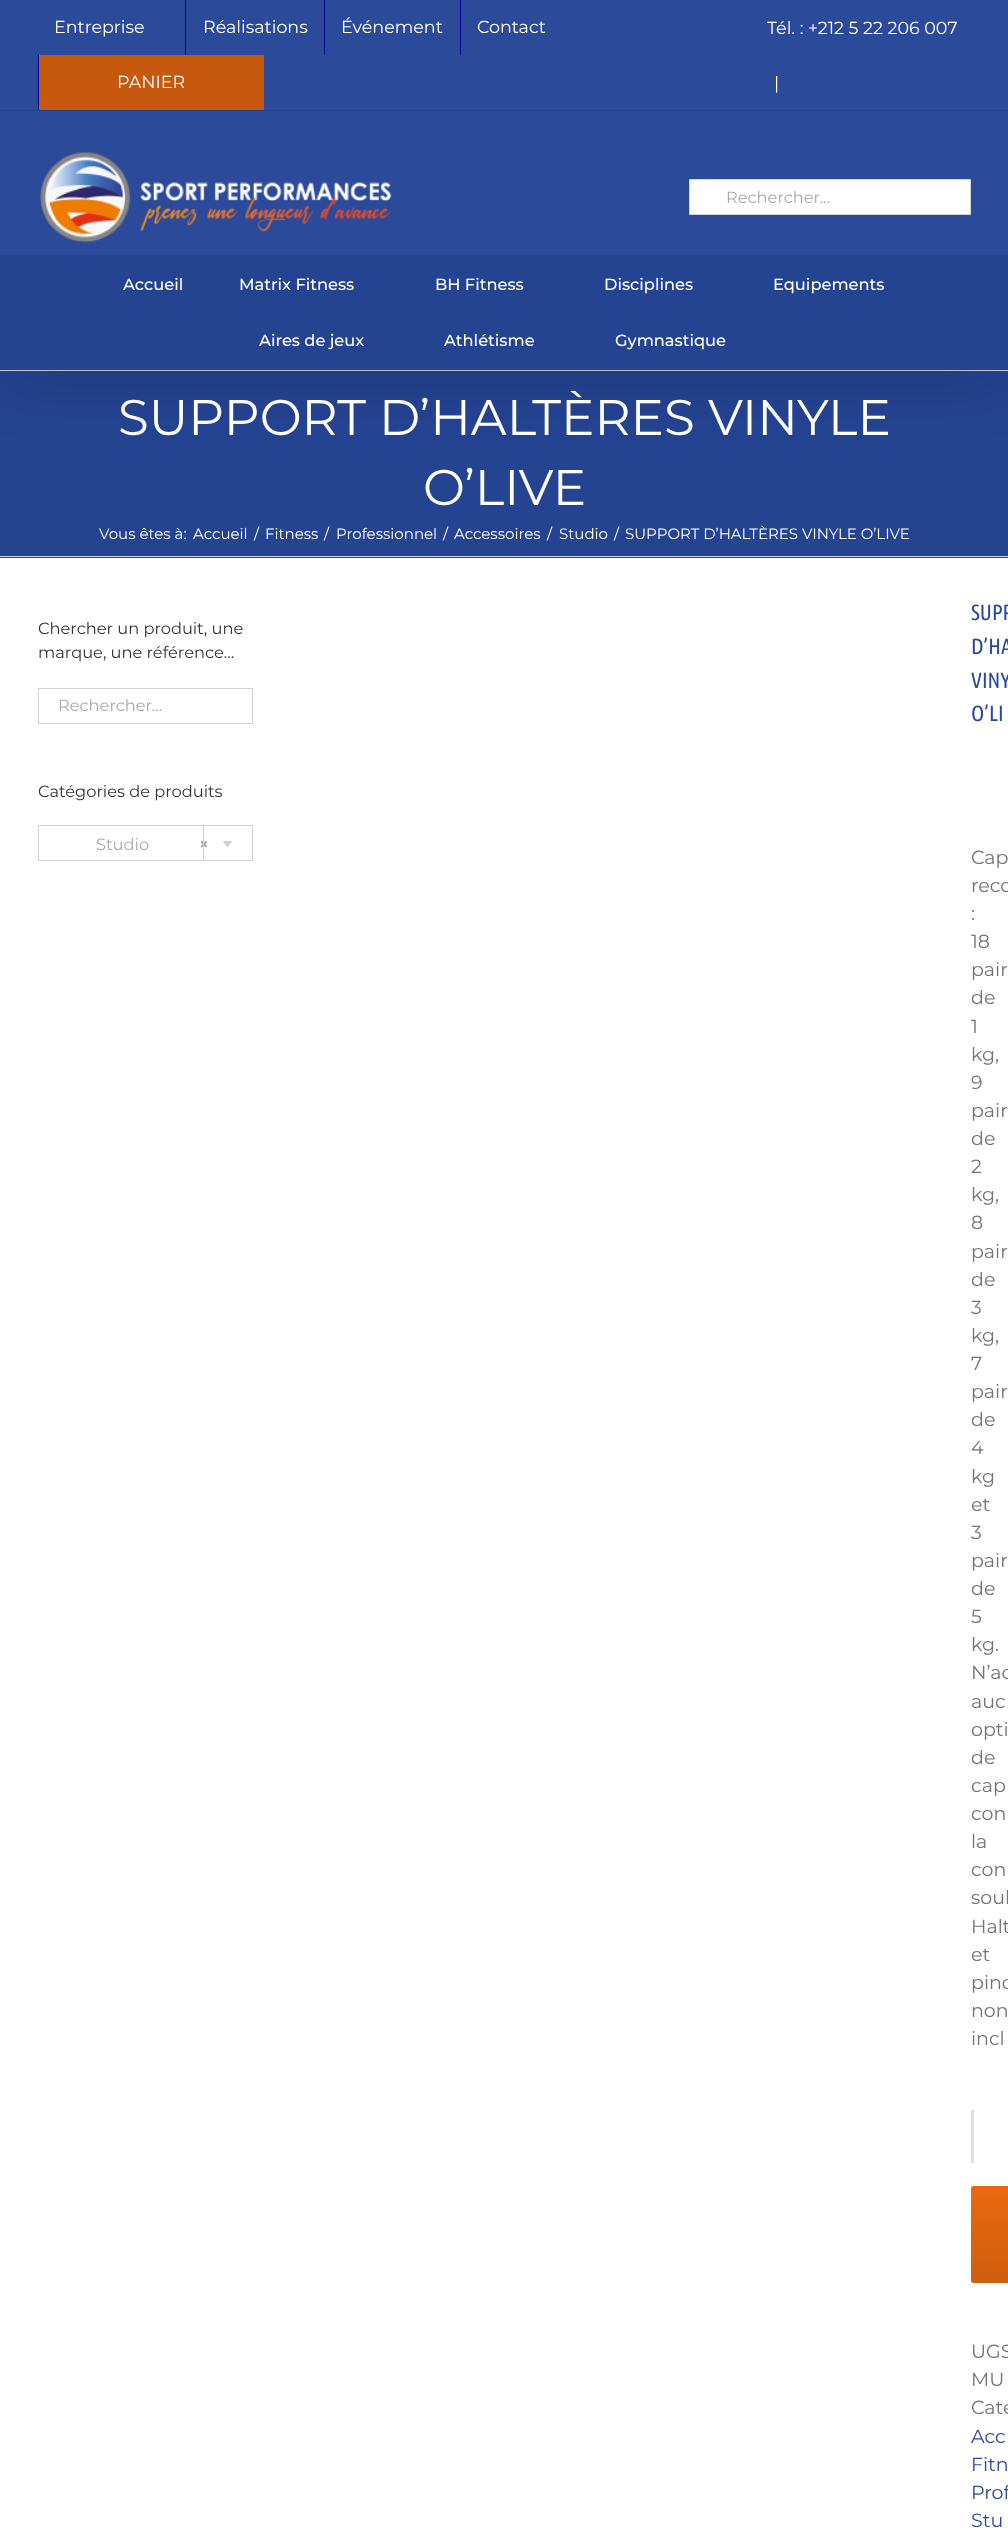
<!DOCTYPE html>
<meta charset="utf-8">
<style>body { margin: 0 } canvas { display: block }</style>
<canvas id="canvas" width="1008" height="2528"></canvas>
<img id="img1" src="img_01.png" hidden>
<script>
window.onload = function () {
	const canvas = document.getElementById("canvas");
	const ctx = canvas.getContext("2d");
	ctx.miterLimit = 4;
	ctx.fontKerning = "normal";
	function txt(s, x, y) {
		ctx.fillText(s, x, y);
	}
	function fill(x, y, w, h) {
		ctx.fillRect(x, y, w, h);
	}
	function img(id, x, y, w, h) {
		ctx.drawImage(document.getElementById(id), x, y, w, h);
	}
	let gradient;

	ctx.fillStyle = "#FFFFFF";
	fill(0, 0, 1008, 2528);
	ctx.fillStyle = "#244391";
	fill(0, 371, 1008, 187);
	ctx.fillStyle = "#D2D3D4";
	fill(0, 370, 1008, 1);
	ctx.fillStyle = "rgba(0, 0, 0, 0.14)";
	ctx.filter = "blur(31px)";
	ctx.beginPath();
	ctx.rect(3, 15, 1003, 365);
	ctx.fill();
	ctx.filter = "none";
	ctx.fillStyle = "#2B4A9A";
	fill(0, 0, 1008, 110);
	ctx.fillStyle = "#244391";
	fill(0, 110, 1008, 1);
	ctx.fillStyle = "#0305A0";
	fill(185, 0, 1, 55);
	fill(324, 0, 1, 55);
	fill(460, 0, 1, 55);
	fill(38, 55, 1, 55);
	ctx.fillStyle = "#C7590F";
	fill(39, 55, 225, 55);
	ctx.fillStyle = "#2B4A9A";
	fill(0, 111, 1008, 144);
	img("img1", 40, 152, 352, 91);
	ctx.fillStyle = "#FFFFFF";
	ctx.beginPath();
	ctx.rect(689.5, 179.5, 281, 35);
	ctx.fill();
	ctx.strokeStyle = "#D2D2D2";
	ctx.stroke();
	ctx.fillStyle = "#244391";
	fill(0, 255, 1008, 115);
	ctx.fillStyle = "#D2D3D4";
	fill(0, 556, 1008, 1);
	ctx.strokeRect(38.5, 688.5, 214, 35);
	ctx.strokeRect(38.5, 825.5, 214, 35);
	ctx.fillStyle = "#D2D2D2";
	ctx.beginPath();
	ctx.moveTo(222.5, 841);
	ctx.lineTo(232.5, 841);
	ctx.lineTo(227.5, 847.5);
	ctx.closePath();
	ctx.fill();
	ctx.fillStyle = "#E0DEDE";
	fill(971, 2110, 3, 53);
	gradient = ctx.createLinearGradient(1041, 2283, 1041, 2186);
	gradient.addColorStop(0, "#CE5E0E");
	gradient.addColorStop(1, "#EB6810");
	ctx.fillStyle = gradient;
	ctx.beginPath();
	ctx.moveTo(973.5, 2186);
	ctx.lineTo(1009, 2186);
	ctx.lineTo(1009, 2283);
	ctx.lineTo(973.5, 2283);
	ctx.bezierCurveTo(972, 2283, 971, 2282, 971, 2280.5);
	ctx.lineTo(971, 2188.5);
	ctx.bezierCurveTo(971, 2187, 972, 2186, 973.5, 2186);
	ctx.closePath();
	ctx.fill();
	ctx.font = "17.5px Montserrat";
	ctx.fillStyle = "#FFFFFF";
	txt("Entreprise", 54, 33);
	txt("Réalisations", 203, 33);
	txt("Événement", 341, 33);
	txt("Contact", 477, 33);
	txt("PANIER", 117, 88);
	txt("Tél. : +212 5 22 206 007", 767, 34);
	txt("|", 774, 89);
	ctx.font = "16.25px Montserrat";
	ctx.fillStyle = "#AAA9A9";
	txt("Rechercher...", 726, 203);
	ctx.font = "500 16.25px Montserrat";
	ctx.fillStyle = "#FFFFFF";
	txt("Accueil", 123, 290);
	txt("Matrix Fitness", 239, 290);
	txt("BH Fitness", 435, 290);
	txt("Disciplines", 604, 290);
	txt("Equipements", 773, 290);
	txt("Aires de jeux", 259, 346);
	txt("Athlétisme", 444, 346);
	txt("Gymnastique", 615, 346);
	ctx.font = "50px Montserrat";
	txt("SUPPORT D’HALTÈRES VINYLE", 118, 435);
	txt("O’LIVE", 423, 505);
	ctx.font = "15px Montserrat";
	txt("Vous êtes à:", 99, 539);
	txt("Accueil", 193, 539);
	txt("/", 254, 539);
	txt("Fitness", 265, 539);
	txt("/", 324, 539);
	txt("Professionnel", 336, 539);
	txt("/", 443, 539);
	txt("Accessoires", 454, 539);
	txt("/", 547, 539);
	txt("Studio", 559, 539);
	txt("/", 614, 539);
	txt("SUPPORT D’HALTÈRES VINYLE O’LIVE", 625, 539);
	ctx.font = "16.25px Montserrat";
	ctx.fillStyle = "#333333";
	txt("Chercher un produit, une", 38, 634);
	txt("marque, une référence…", 38, 658);
	ctx.fillStyle = "#AAA9A9";
	txt("Rechercher...", 58, 711);
	ctx.fillStyle = "#333333";
	txt("Catégories de produits", 38, 797);
	ctx.fillStyle = "#AAA9A9";
	txt("Studio", 96, 850);
	ctx.font = "bold 16.25px Montserrat";
	txt("×", 199, 850);
	ctx.fillStyle = "#D2D2D2";
	fill(203, 825, 1, 36);
	ctx.font = "22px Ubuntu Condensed";
	ctx.fillStyle = "#2B4A9A";
	txt("SUPP", 971, 620);
	txt("D’HA", 971, 654);
	txt("VINY", 971, 688);
	txt("O’LI", 971, 721);
	ctx.font = "19px Montserrat";
	ctx.fillStyle = "#747474";
	txt("Cap", 971, 864);
	txt("reco", 971, 892);
	txt(":", 971, 920);
	txt("18", 971, 948);
	txt("pair", 971, 976);
	txt("de", 971, 1004);
	txt("1", 971, 1033);
	txt("kg,", 971, 1061);
	txt("9", 971, 1089);
	txt("pair", 971, 1117);
	txt("de", 971, 1145);
	txt("2", 971, 1173);
	txt("kg,", 971, 1201);
	txt("8", 971, 1229);
	txt("pair", 971, 1258);
	txt("de", 971, 1286);
	txt("3", 971, 1314);
	txt("kg,", 971, 1342);
	txt("7", 971, 1370);
	txt("pair", 971, 1398);
	txt("de", 971, 1426);
	txt("4", 971, 1454);
	txt("kg", 971, 1483);
	txt("et", 971, 1511);
	txt("3", 971, 1539);
	txt("pair", 971, 1567);
	txt("de", 971, 1595);
	txt("5", 971, 1623);
	txt("kg.", 971, 1651);
	txt("N’ac", 971, 1679);
	txt("auc", 971, 1708);
	txt("opti", 971, 1736);
	txt("de", 971, 1764);
	txt("cap", 971, 1792);
	txt("con", 971, 1820);
	txt("la", 971, 1848);
	txt("con", 971, 1876);
	txt("souh", 971, 1904);
	txt("Halt", 971, 1933);
	txt("et", 971, 1961);
	txt("pinc", 971, 1989);
	txt("non", 971, 2017);
	txt("incl", 971, 2045);
	txt("UGS", 971, 2358);
	txt("MU", 971, 2386);
	txt("Caté", 971, 2414);
	ctx.fillStyle = "#2B4A9A";
	txt("Acc", 971, 2443);
	txt("Fitn", 971, 2471);
	txt("Prof", 971, 2499);
	txt("Stu", 971, 2527);
};
</script>
